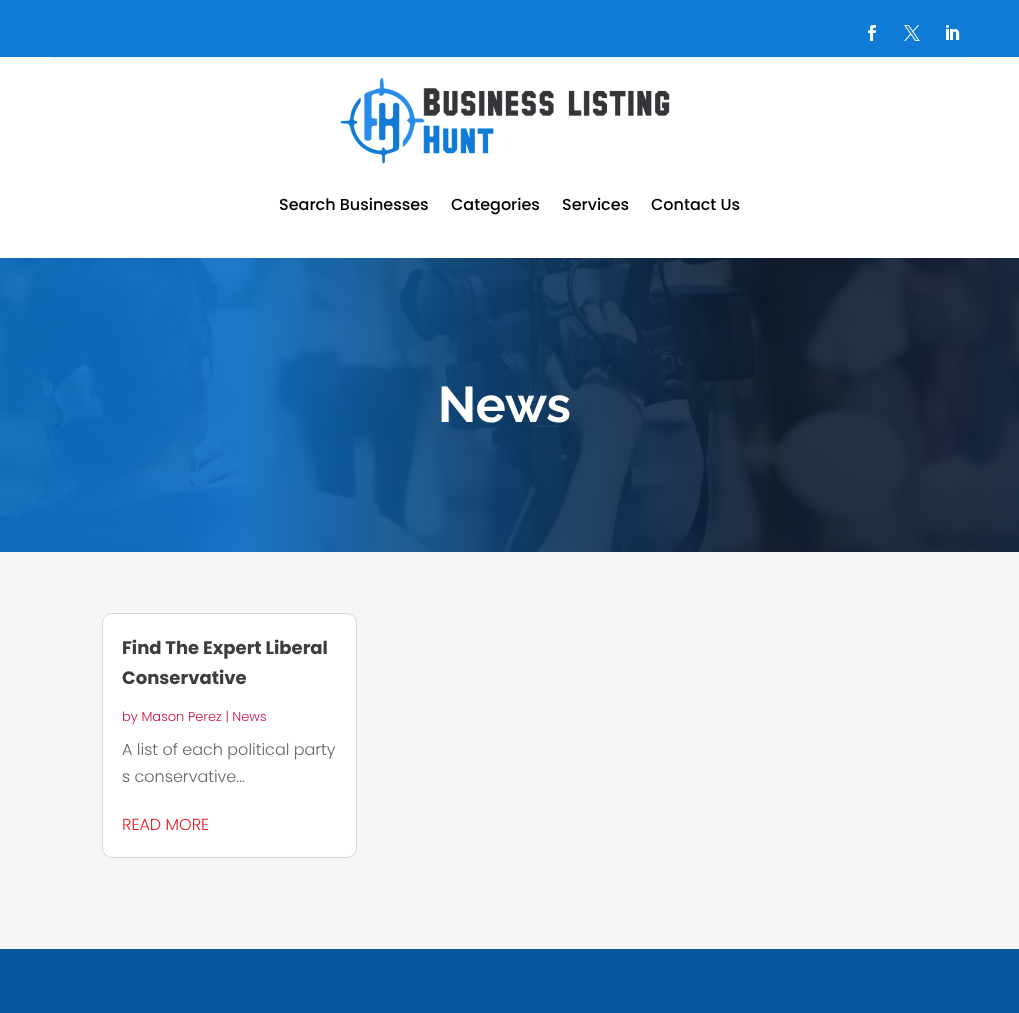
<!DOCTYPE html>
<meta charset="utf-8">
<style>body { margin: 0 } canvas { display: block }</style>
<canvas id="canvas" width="1019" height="1013"></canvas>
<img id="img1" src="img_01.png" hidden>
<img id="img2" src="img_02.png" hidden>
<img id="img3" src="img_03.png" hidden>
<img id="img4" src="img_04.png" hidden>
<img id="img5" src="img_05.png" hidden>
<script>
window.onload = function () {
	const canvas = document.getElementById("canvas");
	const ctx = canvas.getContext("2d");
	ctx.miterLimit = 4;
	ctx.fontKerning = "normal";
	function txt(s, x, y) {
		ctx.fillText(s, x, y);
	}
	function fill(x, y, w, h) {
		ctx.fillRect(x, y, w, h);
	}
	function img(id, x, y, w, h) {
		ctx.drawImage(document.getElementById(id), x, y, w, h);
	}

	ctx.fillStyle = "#FFFFFF";
	fill(0, 0, 1019, 1013);
	ctx.fillStyle = "#0F7BD6";
	fill(0, 0, 1019, 57);
	img("img1", 868, 25, 8, 16);
	img("img2", 904, 25, 16, 16);
	img("img3", 946, 25, 14, 15);
	ctx.fillStyle = "#EDEDED";
	fill(51, 57, 917, 1);
	img("img4", 340, 77, 330, 87);
	img("img5", 0, 258, 1019, 294);
	ctx.fillStyle = "#F6F6F6";
	fill(0, 552, 1019, 397);
	ctx.fillStyle = "#FFFFFF";
	ctx.beginPath();
	ctx.roundRect(102.5, 613.5, 254, 244, 9.5);
	ctx.fill();
	ctx.strokeStyle = "#D8D8D8";
	ctx.stroke();
	ctx.fillStyle = "#07559E";
	fill(0, 949, 1019, 64);
	ctx.font = "500 16px Poppins";
	ctx.fillStyle = "#000000";
	txt("Search Businesses", 279, 210);
	txt("Categories", 451, 210);
	txt("Services", 562, 210);
	txt("Contact Us", 651, 210);
	ctx.font = "bold 50px Raleway";
	ctx.fillStyle = "#FFFFFF";
	txt("News", 438, 422);
	ctx.font = "bold 18px Poppins";
	ctx.fillStyle = "#3D3D3D";
	txt("Find The Expert Liberal", 122, 654);
	txt("Conservative", 122, 684);
	ctx.font = "300 13px Poppins";
	ctx.fillStyle = "#D11242";
	txt("by Mason Perez | News", 122, 721);
	ctx.font = "300 16px Poppins";
	ctx.fillStyle = "#666666";
	txt("A list of each political party", 122, 755);
	txt("s conservative...", 122, 782);
	ctx.fillStyle = "#ED1C24";
	txt("READ MORE", 122, 830);
};
</script>
